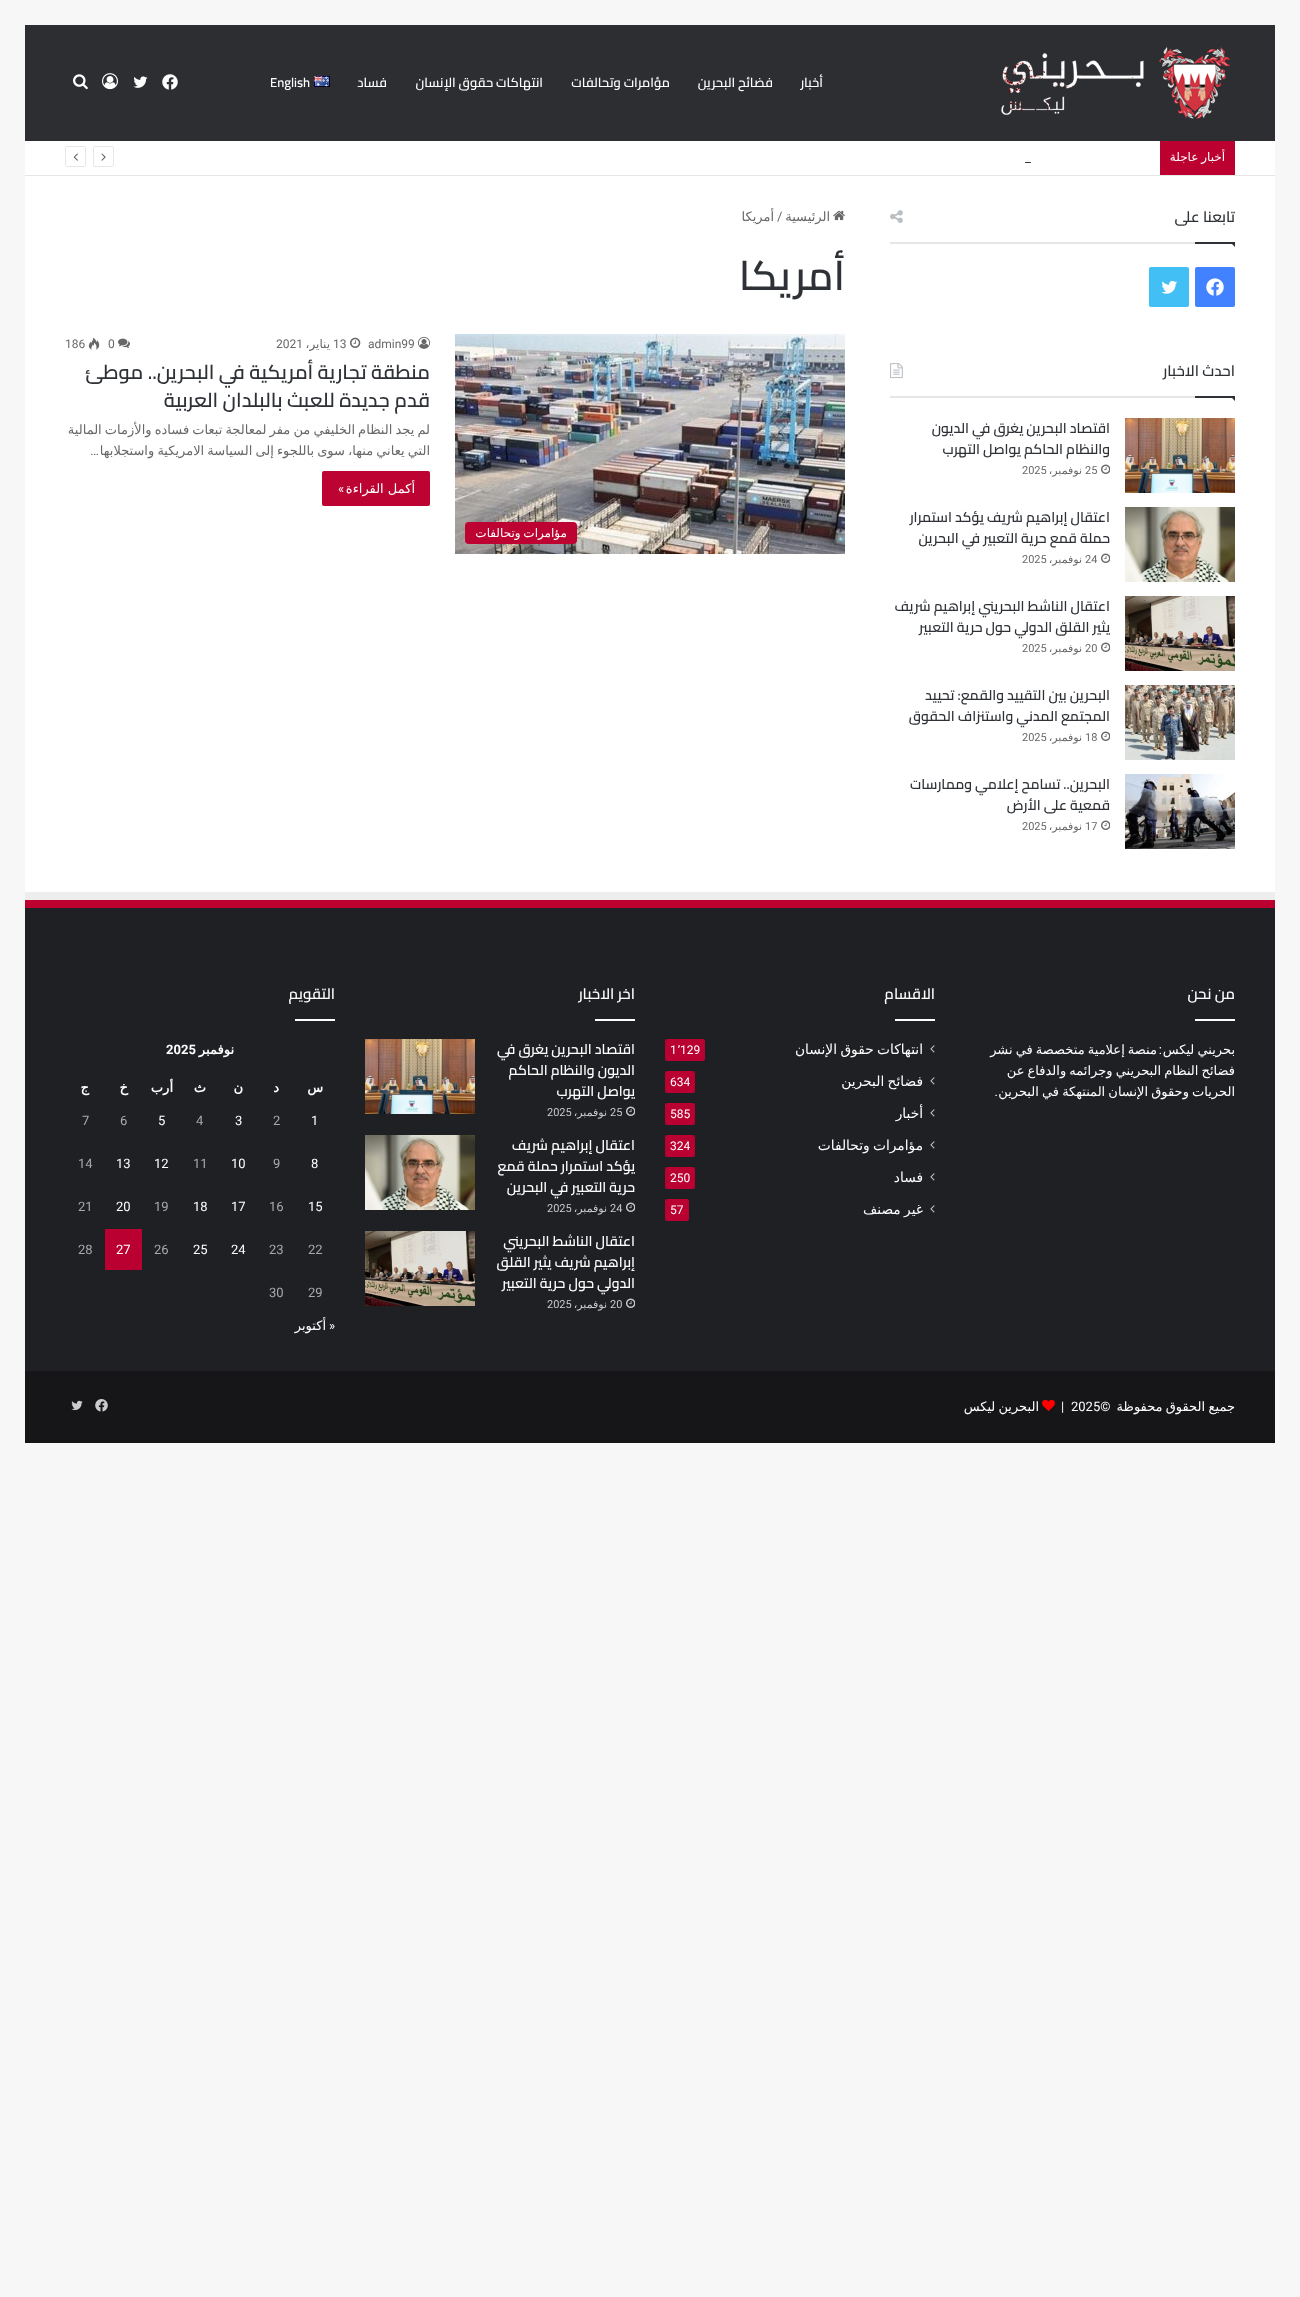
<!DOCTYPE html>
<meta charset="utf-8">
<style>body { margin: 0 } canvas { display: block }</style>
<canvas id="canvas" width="1300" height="2297"></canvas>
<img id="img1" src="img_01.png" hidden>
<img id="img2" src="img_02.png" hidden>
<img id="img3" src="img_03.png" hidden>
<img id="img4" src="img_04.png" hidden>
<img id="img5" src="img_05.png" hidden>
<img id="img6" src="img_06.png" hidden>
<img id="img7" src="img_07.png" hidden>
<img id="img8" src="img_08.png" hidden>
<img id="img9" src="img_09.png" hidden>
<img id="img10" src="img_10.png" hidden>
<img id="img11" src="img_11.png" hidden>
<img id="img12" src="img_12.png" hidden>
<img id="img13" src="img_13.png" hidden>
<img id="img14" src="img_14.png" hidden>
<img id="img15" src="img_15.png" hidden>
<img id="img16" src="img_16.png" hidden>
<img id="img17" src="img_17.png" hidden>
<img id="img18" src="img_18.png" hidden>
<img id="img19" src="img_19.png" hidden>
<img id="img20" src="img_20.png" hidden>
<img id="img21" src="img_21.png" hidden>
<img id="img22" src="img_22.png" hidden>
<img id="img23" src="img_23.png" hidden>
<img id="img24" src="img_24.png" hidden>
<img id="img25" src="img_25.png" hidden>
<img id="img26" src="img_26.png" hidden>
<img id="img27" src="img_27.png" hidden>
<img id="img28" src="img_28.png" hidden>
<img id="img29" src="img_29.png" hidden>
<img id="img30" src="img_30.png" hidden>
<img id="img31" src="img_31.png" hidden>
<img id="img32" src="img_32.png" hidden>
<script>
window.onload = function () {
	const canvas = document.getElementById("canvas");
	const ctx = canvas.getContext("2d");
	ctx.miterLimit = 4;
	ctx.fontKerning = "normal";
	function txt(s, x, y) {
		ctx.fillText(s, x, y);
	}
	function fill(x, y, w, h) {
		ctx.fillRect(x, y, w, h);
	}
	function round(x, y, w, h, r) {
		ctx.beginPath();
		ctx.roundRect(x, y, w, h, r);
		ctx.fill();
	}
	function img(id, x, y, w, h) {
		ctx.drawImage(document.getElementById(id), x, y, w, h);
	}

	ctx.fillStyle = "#F7F7F7";
	fill(0, 0, 1300, 2297);
	ctx.fillStyle = "#FFFFFF";
	fill(25, 141, 1250, 751);
	ctx.fillStyle = "#2C2E32";
	fill(25, 25, 1250, 116);
	img("img1", 1001, 47, 229, 72);
	img("img2", 314, 76, 16, 11);
	img("img3", 162, 74, 16, 16);
	img("img4", 133, 76, 15, 12);
	img("img5", 102, 73, 16, 17);
	img("img6", 73, 74, 15, 16);
	ctx.fillStyle = "#E6E6E6";
	fill(25, 175, 1250, 1);
	ctx.fillStyle = "#BC0030";
	fill(1160, 141, 75, 34);
	ctx.beginPath();
	ctx.moveTo(112, 166.5);
	ctx.lineTo(95, 166.5);
	ctx.bezierCurveTo(94, 166.5, 93.5, 166, 93.5, 165);
	ctx.lineTo(93.5, 148);
	ctx.bezierCurveTo(93.5, 147, 94, 146.5, 95, 146.5);
	ctx.lineTo(112, 146.5);
	ctx.bezierCurveTo(113, 146.5, 113.5, 147, 113.5, 148);
	ctx.lineTo(113.5, 165);
	ctx.bezierCurveTo(113.5, 166, 113, 166.5, 112, 166.5);
	ctx.closePath();
	ctx.strokeStyle = "#E6E6E6";
	ctx.stroke();
	img("img7", 101, 153, 5, 8);
	ctx.beginPath();
	ctx.moveTo(84, 166.5);
	ctx.lineTo(67, 166.5);
	ctx.bezierCurveTo(66, 166.5, 65.5, 166, 65.5, 165);
	ctx.lineTo(65.5, 148);
	ctx.bezierCurveTo(65.5, 147, 66, 146.5, 67, 146.5);
	ctx.lineTo(84, 146.5);
	ctx.bezierCurveTo(85, 146.5, 85.5, 147, 85.5, 148);
	ctx.lineTo(85.5, 165);
	ctx.bezierCurveTo(85.5, 166, 85, 166.5, 84, 166.5);
	ctx.closePath();
	ctx.stroke();
	img("img8", 73, 153, 5, 8);
	ctx.fillStyle = "#E6E6E6";
	fill(890, 242, 305, 2);
	img("img9", 890, 210, 13, 13);
	ctx.fillStyle = "#2E3136";
	ctx.beginPath();
	ctx.moveTo(1230, 242);
	ctx.lineTo(1235, 242);
	ctx.lineTo(1235, 247);
	ctx.closePath();
	ctx.fill();
	fill(1195, 242, 40, 2);
	ctx.fillStyle = "#4281FF";
	round(1195, 267, 40, 40, 2);
	img("img10", 1206, 278, 18, 18);
	ctx.fillStyle = "#42C0F5";
	round(1149, 267, 40, 40, 2);
	img("img11", 1161, 280, 17, 14);
	ctx.fillStyle = "#E6E6E6";
	fill(890, 396, 305, 2);
	img("img12", 890, 363, 13, 16);
	ctx.fillStyle = "#2E3136";
	ctx.beginPath();
	ctx.moveTo(1230, 396);
	ctx.lineTo(1235, 396);
	ctx.lineTo(1235, 401);
	ctx.closePath();
	ctx.fill();
	fill(1195, 396, 40, 2);
	img("img13", 1125, 418, 110, 75);
	img("img14", 1101, 464, 9, 10);
	img("img15", 1125, 507, 110, 75);
	img("img14", 1101, 553, 9, 10);
	img("img16", 1125, 596, 110, 75);
	img("img14", 1101, 642, 9, 10);
	img("img17", 1125, 685, 110, 75);
	img("img14", 1101, 731, 9, 10);
	img("img18", 1125, 774, 110, 75);
	img("img14", 1101, 820, 9, 10);
	img("img19", 833, 210, 12, 11);
	img("img20", 418, 336, 12, 13);
	img("img21", 350, 337, 11, 11);
	img("img22", 118, 338, 12, 10);
	img("img23", 88, 337, 12, 13);
	ctx.fillStyle = "#BD0332";
	round(322, 471, 108, 35, 2);
	img("img24", 455, 334, 390, 220);
	round(465, 522, 112, 22, 4);
	ctx.fillStyle = "#1F2024";
	fill(25, 908, 1250, 463);
	ctx.fillStyle = "#EDEDED";
	fill(25, 892, 1250, 8);
	ctx.fillStyle = "#BC0030";
	fill(25, 900, 1250, 8);
	ctx.fillStyle = "#FDFDFD";
	fill(1195, 1019, 40, 2);
	fill(895, 1019, 40, 2);
	img("img25", 930, 1045, 5, 8);
	ctx.fillStyle = "#BA0030";
	round(665, 1039, 40, 22, 2);
	img("img25", 930, 1077, 5, 8);
	round(665, 1071, 30, 22, 2);
	img("img25", 930, 1109, 5, 8);
	round(665, 1103, 30, 22, 2);
	img("img25", 930, 1141, 5, 8);
	round(665, 1135, 30, 22, 2);
	img("img25", 930, 1173, 5, 8);
	round(665, 1167, 30, 22, 2);
	img("img25", 930, 1205, 5, 8);
	round(665, 1199, 24, 22, 2);
	ctx.fillStyle = "#FDFDFD";
	fill(595, 1019, 40, 2);
	img("img26", 626, 1106, 9, 10);
	img("img27", 365, 1039, 110, 75);
	img("img26", 626, 1202, 9, 10);
	img("img28", 365, 1135, 110, 75);
	img("img26", 626, 1298, 9, 10);
	img("img29", 365, 1231, 110, 75);
	fill(295, 1019, 40, 2);
	ctx.fillStyle = "#BA0030";
	fill(105, 1229, 37, 41);
	ctx.fillStyle = "#161619";
	fill(25, 1371, 1250, 72);
	img("img30", 1042, 1399, 13, 12);
	img("img31", 95, 1399, 13, 13);
	img("img32", 71, 1400, 12, 11);
	ctx.direction = "rtl";
	ctx.font = "600 13px Cairo";
	ctx.fillStyle = "#FFFFFF";
	txt("أخبار", 823, 87);
	txt("فضائح البحرين", 773, 87);
	txt("مؤامرات وتحالفات", 670, 87);
	txt("انتهاكات حقوق الإنسان", 543, 87);
	txt("فساد", 387, 87);
	ctx.direction = "ltr";
	txt("English", 270, 87);
	ctx.wordSpacing = "-1px";
	ctx.direction = "rtl";
	ctx.font = "12px DejaVu Sans";
	txt("أخبار عاجلة", 1225, 161);
	ctx.wordSpacing = "0px";
	ctx.direction = "ltr";
	ctx.font = "13px Roboto";
	ctx.fillStyle = "#2E3136";
	txt("_", 1025, 162);
	ctx.direction = "rtl";
	ctx.font = "600 15px Cairo";
	txt("تابعنا على", 1235, 222);
	txt("احدث الاخبار", 1235, 376);
	ctx.font = "600 14px Cairo";
	txt("اقتصاد البحرين يغرق في الديون", 1110, 433);
	txt("والنظام الحاكم يواصل التهرب", 1110, 454);
	ctx.direction = "ltr";
	ctx.font = "11px Roboto";
	ctx.fillStyle = "#686868";
	txt("25", 1085, 474);
	ctx.direction = "rtl";
	ctx.font = "11px DejaVu Sans";
	txt("نوفمبر،", 1082, 474);
	ctx.direction = "ltr";
	ctx.font = "11px Roboto";
	txt("2025", 1022, 474);
	ctx.direction = "rtl";
	ctx.font = "600 14px Cairo";
	ctx.fillStyle = "#2E3136";
	txt("اعتقال إبراهيم شريف يؤكد استمرار", 1110, 522);
	txt("حملة قمع حرية التعبير في البحرين", 1110, 543);
	ctx.direction = "ltr";
	ctx.font = "11px Roboto";
	ctx.fillStyle = "#686868";
	txt("24", 1085, 563);
	ctx.direction = "rtl";
	ctx.font = "11px DejaVu Sans";
	txt("نوفمبر،", 1082, 563);
	ctx.direction = "ltr";
	ctx.font = "11px Roboto";
	txt("2025", 1022, 563);
	ctx.direction = "rtl";
	ctx.font = "600 14px Cairo";
	ctx.fillStyle = "#2E3136";
	txt("اعتقال الناشط البحريني إبراهيم شريف", 1110, 611);
	txt("يثير القلق الدولي حول حرية التعبير", 1110, 632);
	ctx.direction = "ltr";
	ctx.font = "11px Roboto";
	ctx.fillStyle = "#686868";
	txt("20", 1085, 652);
	ctx.direction = "rtl";
	ctx.font = "11px DejaVu Sans";
	txt("نوفمبر،", 1082, 652);
	ctx.direction = "ltr";
	ctx.font = "11px Roboto";
	txt("2025", 1022, 652);
	ctx.direction = "rtl";
	ctx.font = "600 14px Cairo";
	ctx.fillStyle = "#2E3136";
	txt("البحرين بين التقييد والقمع: تحييد", 1110, 700);
	txt("المجتمع المدني واستنزاف الحقوق", 1110, 721);
	ctx.direction = "ltr";
	ctx.font = "11px Roboto";
	ctx.fillStyle = "#686868";
	txt("18", 1085, 741);
	ctx.direction = "rtl";
	ctx.font = "11px DejaVu Sans";
	txt("نوفمبر،", 1082, 741);
	ctx.direction = "ltr";
	ctx.font = "11px Roboto";
	txt("2025", 1022, 741);
	ctx.direction = "rtl";
	ctx.font = "600 14px Cairo";
	ctx.fillStyle = "#2E3136";
	txt("البحرين.. تسامح إعلامي وممارسات", 1110, 789);
	txt("قمعية على الأرض", 1110, 810);
	ctx.direction = "ltr";
	ctx.font = "11px Roboto";
	ctx.fillStyle = "#686868";
	txt("17", 1085, 830);
	ctx.direction = "rtl";
	ctx.font = "11px DejaVu Sans";
	txt("نوفمبر،", 1082, 830);
	ctx.direction = "ltr";
	ctx.font = "11px Roboto";
	txt("2025", 1022, 830);
	ctx.direction = "rtl";
	ctx.font = "13px DejaVu Sans";
	txt("الرئيسية", 830, 221);
	ctx.direction = "ltr";
	ctx.font = "13px Roboto";
	txt("/", 777, 221);
	ctx.direction = "rtl";
	ctx.font = "13px DejaVu Sans";
	txt("أمريكا", 774, 221);
	ctx.font = "600 41px Cairo";
	ctx.fillStyle = "#2E3136";
	txt("أمريكا", 845, 290);
	ctx.direction = "ltr";
	ctx.font = "12px Roboto";
	ctx.fillStyle = "#686868";
	txt("admin99", 368, 348);
	txt("13", 333, 348);
	ctx.direction = "rtl";
	ctx.font = "12px DejaVu Sans";
	txt("يناير،", 330, 348);
	ctx.direction = "ltr";
	ctx.font = "12px Roboto";
	txt("2021", 276, 348);
	txt("0", 108, 348);
	txt("186", 65, 348);
	ctx.direction = "rtl";
	ctx.font = "600 20px Cairo";
	ctx.fillStyle = "#2E3136";
	txt("منطقة تجارية أمريكية في البحرين.. موطئ", 430, 379);
	txt("قدم جديدة للعبث بالبلدان العربية", 430, 407);
	ctx.wordSpacing = "-1px";
	ctx.font = "13px DejaVu Sans";
	ctx.fillStyle = "#686868";
	txt("لم يجد النظام الخليفي من مفر لمعالجة تبعات فساده والأزمات المالية", 430, 434);
	txt("التي يعاني منها، سوى باللجوء إلى السياسة الامريكية واستجلابها", 430, 455);
	ctx.wordSpacing = "0px";
	ctx.font = "13px Roboto";
	txt("…", 99, 455);
	ctx.font = "13px DejaVu Sans";
	ctx.fillStyle = "#FFFFFF";
	txt("أكمل القراءة", 415, 493);
	ctx.font = "13px Roboto";
	txt("»", 344, 493);
	ctx.wordSpacing = "-1px";
	ctx.font = "12px DejaVu Sans";
	txt("مؤامرات وتحالفات", 567, 537);
	ctx.wordSpacing = "0px";
	ctx.font = "600 15px Cairo";
	txt("من نحن", 1235, 999);
	ctx.wordSpacing = "-1px";
	ctx.font = "13px DejaVu Sans";
	txt("بحريني ليكس", 1235, 1054);
	ctx.wordSpacing = "0px";
	ctx.font = "13px Roboto";
	txt(":", 1162, 1054);
	ctx.wordSpacing = "-1px";
	ctx.font = "13px DejaVu Sans";
	txt("منصة إعلامية متخصصة في نشر", 1157, 1054);
	ctx.save();
	ctx.beginPath();
	ctx.rect(965, 1039, 270, 63);
	ctx.clip();
	txt("فضائح النظام البحريني وجرائمه والدفاع عن", 1235, 1075);
	txt("الحريات وحقوق الإنسان المنتهكة في البحرين", 1235, 1096);
	ctx.restore();
	ctx.wordSpacing = "0px";
	ctx.font = "13px Roboto";
	txt(".", 998, 1096);
	ctx.font = "600 15px Cairo";
	txt("الاقسام", 935, 999);
	ctx.wordSpacing = "-1px";
	ctx.font = "13.75px DejaVu Sans";
	txt("انتهاكات حقوق الإنسان", 923, 1054);
	ctx.wordSpacing = "0px";
	ctx.direction = "ltr";
	ctx.font = "12px Roboto";
	txt("129", 680, 1054);
	ctx.font = "12px DejaVu Sans";
	txt("٬", 677, 1054);
	ctx.font = "12px Roboto";
	txt("1", 670, 1054);
	ctx.wordSpacing = "-1px";
	ctx.direction = "rtl";
	ctx.font = "13.75px DejaVu Sans";
	txt("فضائح البحرين", 923, 1086);
	ctx.wordSpacing = "0px";
	ctx.direction = "ltr";
	ctx.font = "12px Roboto";
	txt("634", 670, 1086);
	ctx.direction = "rtl";
	ctx.font = "13.75px DejaVu Sans";
	txt("أخبار", 923, 1118);
	ctx.direction = "ltr";
	ctx.font = "12px Roboto";
	txt("585", 670, 1118);
	ctx.wordSpacing = "-1px";
	ctx.direction = "rtl";
	ctx.font = "13.75px DejaVu Sans";
	txt("مؤامرات وتحالفات", 923, 1150);
	ctx.wordSpacing = "0px";
	ctx.direction = "ltr";
	ctx.font = "12px Roboto";
	txt("324", 670, 1150);
	ctx.direction = "rtl";
	ctx.font = "13.75px DejaVu Sans";
	txt("فساد", 923, 1182);
	ctx.direction = "ltr";
	ctx.font = "12px Roboto";
	txt("250", 670, 1182);
	ctx.wordSpacing = "-1px";
	ctx.direction = "rtl";
	ctx.font = "13.75px DejaVu Sans";
	txt("غير مصنف", 923, 1214);
	ctx.wordSpacing = "0px";
	ctx.direction = "ltr";
	ctx.font = "12px Roboto";
	txt("57", 670, 1214);
	ctx.direction = "rtl";
	ctx.font = "600 15px Cairo";
	txt("اخر الاخبار", 635, 999);
	ctx.font = "600 14px Cairo";
	txt("اقتصاد البحرين يغرق في", 635, 1054);
	txt("الديون والنظام الحاكم", 635, 1075);
	txt("يواصل التهرب", 635, 1096);
	ctx.direction = "ltr";
	ctx.font = "11px Roboto";
	ctx.fillStyle = "#CACACA";
	txt("25", 610, 1116);
	ctx.direction = "rtl";
	ctx.font = "11px DejaVu Sans";
	txt("نوفمبر،", 607, 1116);
	ctx.direction = "ltr";
	ctx.font = "11px Roboto";
	txt("2025", 547, 1116);
	ctx.direction = "rtl";
	ctx.font = "600 14px Cairo";
	ctx.fillStyle = "#FFFFFF";
	txt("اعتقال إبراهيم شريف", 635, 1150);
	txt("يؤكد استمرار حملة قمع", 635, 1171);
	txt("حرية التعبير في البحرين", 635, 1192);
	ctx.direction = "ltr";
	ctx.font = "11px Roboto";
	ctx.fillStyle = "#CACACA";
	txt("24", 610, 1212);
	ctx.direction = "rtl";
	ctx.font = "11px DejaVu Sans";
	txt("نوفمبر،", 607, 1212);
	ctx.direction = "ltr";
	ctx.font = "11px Roboto";
	txt("2025", 547, 1212);
	ctx.direction = "rtl";
	ctx.font = "600 14px Cairo";
	ctx.fillStyle = "#FFFFFF";
	txt("اعتقال الناشط البحريني", 635, 1246);
	txt("إبراهيم شريف يثير القلق", 635, 1267);
	txt("الدولي حول حرية التعبير", 635, 1288);
	ctx.direction = "ltr";
	ctx.font = "11px Roboto";
	ctx.fillStyle = "#CACACA";
	txt("20", 610, 1308);
	ctx.direction = "rtl";
	ctx.font = "11px DejaVu Sans";
	txt("نوفمبر،", 607, 1308);
	ctx.direction = "ltr";
	ctx.font = "11px Roboto";
	txt("2025", 547, 1308);
	ctx.direction = "rtl";
	ctx.font = "600 15px Cairo";
	ctx.fillStyle = "#FFFFFF";
	txt("التقويم", 335, 999);
	ctx.font = "bold 13px DejaVu Sans";
	txt("نوفمبر", 234, 1054);
	ctx.direction = "ltr";
	ctx.font = "bold 13px Roboto";
	txt("2025", 166, 1054);
	ctx.direction = "rtl";
	ctx.font = "bold 13px DejaVu Sans";
	txt("س", 323, 1092);
	txt("د", 279, 1092);
	txt("ن", 243, 1092);
	txt("ث", 206, 1092);
	txt("أرب", 173, 1092);
	txt("خ", 128, 1092);
	txt("ج", 89, 1092);
	ctx.direction = "ltr";
	ctx.font = "13px Roboto";
	txt("1", 311, 1125);
	ctx.fillStyle = "#A9A9A9";
	txt("2", 273, 1125);
	ctx.fillStyle = "#FFFFFF";
	txt("3", 235, 1125);
	ctx.fillStyle = "#A9A9A9";
	txt("4", 196, 1125);
	ctx.fillStyle = "#FFFFFF";
	txt("5", 158, 1125);
	ctx.fillStyle = "#A9A9A9";
	txt("6", 120, 1125);
	txt("7", 82, 1125);
	ctx.fillStyle = "#FFFFFF";
	txt("8", 311, 1168);
	ctx.fillStyle = "#A9A9A9";
	txt("9", 273, 1168);
	ctx.fillStyle = "#FFFFFF";
	txt("10", 231, 1168);
	ctx.fillStyle = "#A9A9A9";
	txt("11", 193, 1168);
	ctx.fillStyle = "#FFFFFF";
	txt("12", 154, 1168);
	txt("13", 116, 1168);
	ctx.fillStyle = "#A9A9A9";
	txt("14", 78, 1168);
	ctx.fillStyle = "#FFFFFF";
	txt("15", 308, 1211);
	ctx.fillStyle = "#A9A9A9";
	txt("16", 269, 1211);
	ctx.fillStyle = "#FFFFFF";
	txt("17", 231, 1211);
	txt("18", 193, 1211);
	ctx.fillStyle = "#A9A9A9";
	txt("19", 154, 1211);
	ctx.fillStyle = "#FFFFFF";
	txt("20", 116, 1211);
	ctx.fillStyle = "#A9A9A9";
	txt("21", 78, 1211);
	txt("22", 308, 1254);
	txt("23", 269, 1254);
	ctx.fillStyle = "#FFFFFF";
	txt("24", 231, 1254);
	txt("25", 193, 1254);
	ctx.fillStyle = "#A9A9A9";
	txt("26", 154, 1254);
	ctx.fillStyle = "#FFFFFF";
	txt("27", 116, 1254);
	ctx.fillStyle = "#A9A9A9";
	txt("28", 78, 1254);
	txt("29", 308, 1297);
	txt("30", 269, 1297);
	ctx.direction = "rtl";
	ctx.fillStyle = "#FFFFFF";
	txt("«", 335, 1330);
	ctx.font = "13px DejaVu Sans";
	txt("أكتوبر", 326, 1330);
	txt("جميع", 1235, 1411);
	ctx.wordSpacing = "-1px";
	txt("الحقوق محفوظة", 1205, 1411);
	ctx.wordSpacing = "0px";
	ctx.direction = "ltr";
	ctx.font = "13px Roboto";
	txt("2025©", 1071, 1411);
	txt("|", 1061, 1411);
	ctx.wordSpacing = "-1px";
	ctx.direction = "rtl";
	ctx.font = "13px DejaVu Sans";
	txt("البحرين ليكس", 1039, 1411);
};
</script>
